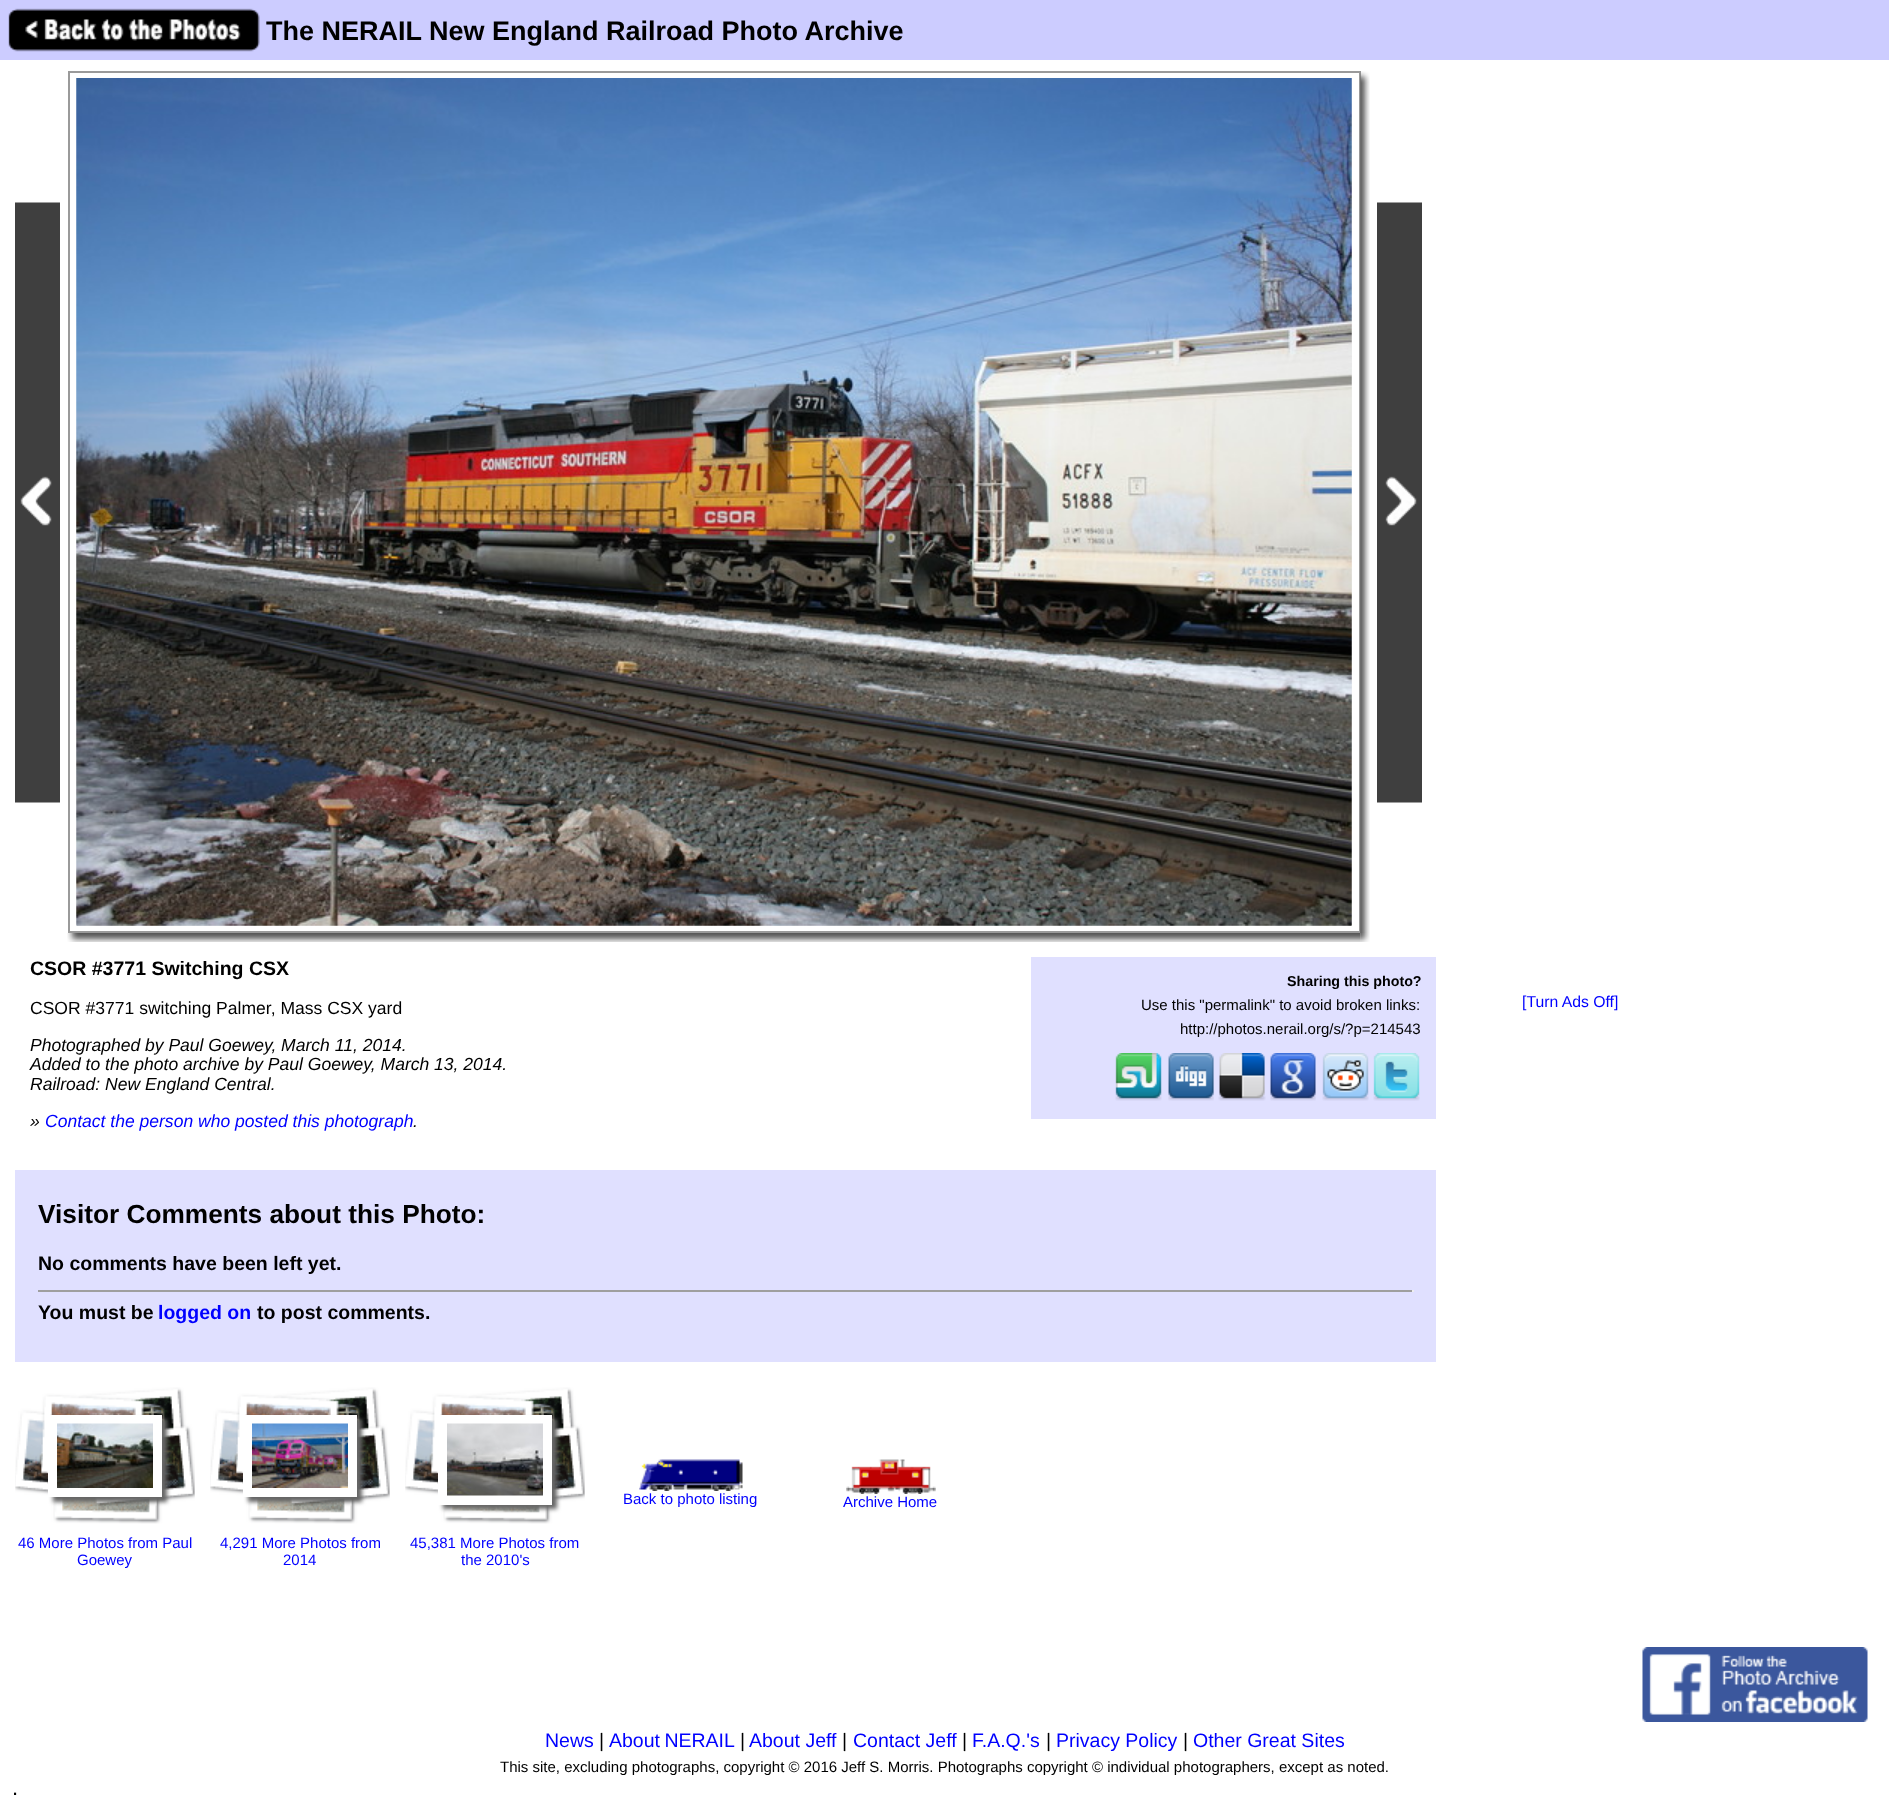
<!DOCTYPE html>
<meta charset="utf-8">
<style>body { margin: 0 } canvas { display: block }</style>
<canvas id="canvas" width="1889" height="1809"></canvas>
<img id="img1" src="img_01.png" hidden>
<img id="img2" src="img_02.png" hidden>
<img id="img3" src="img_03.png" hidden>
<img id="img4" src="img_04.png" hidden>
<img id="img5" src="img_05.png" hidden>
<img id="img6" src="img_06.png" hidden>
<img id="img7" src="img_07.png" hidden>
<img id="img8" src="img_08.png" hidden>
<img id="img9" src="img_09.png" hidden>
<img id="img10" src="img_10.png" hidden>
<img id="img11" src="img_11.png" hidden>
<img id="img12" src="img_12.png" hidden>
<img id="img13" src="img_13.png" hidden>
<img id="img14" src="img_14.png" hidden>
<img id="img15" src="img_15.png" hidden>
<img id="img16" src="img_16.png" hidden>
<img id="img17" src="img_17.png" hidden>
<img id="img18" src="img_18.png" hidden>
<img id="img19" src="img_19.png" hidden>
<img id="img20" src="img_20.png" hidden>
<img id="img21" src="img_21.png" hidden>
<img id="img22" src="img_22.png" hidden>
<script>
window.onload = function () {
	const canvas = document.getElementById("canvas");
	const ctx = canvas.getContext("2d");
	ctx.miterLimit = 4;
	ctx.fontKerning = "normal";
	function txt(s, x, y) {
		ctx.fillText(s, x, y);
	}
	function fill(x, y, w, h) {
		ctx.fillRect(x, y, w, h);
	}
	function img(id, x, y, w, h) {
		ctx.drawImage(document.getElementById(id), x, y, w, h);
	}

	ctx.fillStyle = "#FFFFFF";
	fill(0, 0, 1889, 1809);
	ctx.fillStyle = "#CCCCFF";
	fill(0, 0, 1889, 60);
	img("img1", 8, 8, 252, 44);
	img("img2", 15, 202, 45, 601);
	ctx.strokeStyle = "#9A9A9A";
	ctx.lineWidth = 2;
	ctx.strokeRect(69, 72, 1291, 860);
	ctx.fillStyle = "#EEEEEE";
	fill(77, 78, 1275, 848);
	img("img3", 76, 78, 1276, 848);
	img("img4", 76, 78, 1276, 848);
	img("img5", 1360, 71, 10, 862);
	img("img6", 1377, 202, 45, 601);
	img("img7", 67, 933, 1294, 9);
	img("img8", 1360, 933, 10, 9);
	ctx.fillStyle = "#E0E0FF";
	fill(1031, 957, 405, 162);
	img("img9", 1115, 1053, 47, 48);
	img("img10", 1168, 1053, 46, 48);
	img("img11", 1218, 1053, 48, 48);
	img("img12", 1270, 1053, 46, 48);
	img("img13", 1322, 1053, 47, 48);
	img("img14", 1373, 1053, 47, 48);
	fill(15, 1170, 1421, 192);
	ctx.fillStyle = "#9F9F9F";
	fill(38, 1290, 1375, 2);
	ctx.fillStyle = "#EEEEEE";
	fill(1412, 1290, 2, 2);
	img("img15", 639, 1459, 104, 32);
	img("img16", 846, 1459, 90, 35);
	img("img17", 15, 1387, 180, 137);
	ctx.fillStyle = "#666666";
	ctx.filter = "blur(2px)";
	ctx.beginPath();
	ctx.rect(53, 1419, 114, 83);
	ctx.fill();
	ctx.filter = "none";
	ctx.fillStyle = "#FFFFFF";
	fill(48, 1415, 114, 82);
	img("img18", 57, 1423, 96, 65);
	img("img17", 210, 1387, 180, 137);
	ctx.fillStyle = "#666666";
	ctx.filter = "blur(2px)";
	ctx.beginPath();
	ctx.rect(248, 1419, 114, 83);
	ctx.fill();
	ctx.filter = "none";
	ctx.fillStyle = "#FFFFFF";
	fill(243, 1415, 114, 82);
	img("img19", 252, 1423, 96, 65);
	img("img20", 405, 1387, 180, 137);
	ctx.fillStyle = "#666666";
	ctx.filter = "blur(2px)";
	ctx.beginPath();
	ctx.rect(443, 1419, 114, 90);
	ctx.fill();
	ctx.filter = "none";
	ctx.fillStyle = "#FFFFFF";
	fill(438, 1415, 114, 90);
	img("img21", 447, 1423, 96, 73);
	img("img22", 1642, 1647, 226, 75);
	ctx.font = "bold 27px Liberation Sans";
	ctx.fillStyle = "#000000";
	txt("The NERAIL New England Railroad Photo Archive", 266, 40);
	ctx.font = "bold 19.5px Liberation Sans";
	txt("CSOR #3771 Switching CSX", 30, 975);
	ctx.font = "17.55px Liberation Sans";
	txt("CSOR #3771 switching Palmer, Mass CSX yard", 30, 1014);
	ctx.font = "italic 17.55px Liberation Sans";
	txt("Photographed by Paul Goewey, March 11, 2014.", 30, 1051);
	txt("Added to the photo archive by Paul Goewey, March 13, 2014.", 30, 1070);
	txt("Railroad: New England Central.", 30, 1090);
	txt("»", 30, 1127);
	ctx.fillStyle = "#0000FF";
	txt("Contact the person who posted this photograph", 45, 1127);
	ctx.fillStyle = "#000000";
	txt(".", 413, 1127);
	ctx.font = "bold 14.25px Liberation Sans";
	txt("Sharing this photo?", 1287, 986);
	ctx.font = "15px Liberation Sans";
	txt("Use this \"permalink\" to avoid broken links:", 1141, 1010);
	txt("http://photos.nerail.org/s/?p=214543", 1180, 1034);
	ctx.font = "15.75px Liberation Sans";
	ctx.fillStyle = "#0000FF";
	txt("[Turn Ads Off]", 1522, 1007);
	ctx.font = "bold 26.25px Liberation Sans";
	ctx.fillStyle = "#000000";
	txt("Visitor Comments about this Photo:", 38, 1223);
	ctx.font = "bold 19.5px Liberation Sans";
	txt("No comments have been left yet.", 38, 1270);
	txt("You must be", 38, 1319);
	ctx.fillStyle = "#0000FF";
	txt("logged on", 158, 1319);
	ctx.fillStyle = "#000000";
	txt("to post comments.", 257, 1319);
	ctx.font = "15px Liberation Sans";
	ctx.fillStyle = "#0000FF";
	txt("Back to photo listing", 623, 1504);
	txt("Archive Home", 843, 1507);
	txt("46 More Photos from Paul", 18, 1548);
	txt("Goewey", 77, 1565);
	txt("4,291 More Photos from", 220, 1548);
	txt("2014", 283, 1565);
	txt("45,381 More Photos from", 410, 1548);
	txt("the 2010's", 461, 1565);
	ctx.font = "19.5px Liberation Sans";
	txt("News", 545, 1747);
	ctx.fillStyle = "#000000";
	txt("|", 599, 1747);
	ctx.wordSpacing = "-1px";
	ctx.fillStyle = "#0000FF";
	txt("About NERAIL", 609, 1747);
	ctx.wordSpacing = "0px";
	ctx.fillStyle = "#000000";
	txt("|", 740, 1747);
	ctx.fillStyle = "#0000FF";
	txt("About Jeff", 749, 1747);
	ctx.fillStyle = "#000000";
	txt("|", 842, 1747);
	ctx.fillStyle = "#0000FF";
	txt("Contact Jeff", 853, 1747);
	ctx.fillStyle = "#000000";
	txt("|", 962, 1747);
	ctx.fillStyle = "#0000FF";
	txt("F.A.Q.'s", 972, 1747);
	ctx.fillStyle = "#000000";
	txt("|", 1046, 1747);
	ctx.fillStyle = "#0000FF";
	txt("Privacy Policy", 1056, 1747);
	ctx.fillStyle = "#000000";
	txt("|", 1183, 1747);
	ctx.fillStyle = "#0000FF";
	txt("Other Great Sites", 1193, 1747);
	ctx.font = "15px Liberation Sans";
	ctx.fillStyle = "#000000";
	txt("This site, excluding photographs, copyright © 2016 Jeff S. Morris. Photographs copyright © individual photographers, except as noted.", 500, 1772);
	ctx.font = "22px Liberation Sans";
	txt(".", 12, 1795);
};
</script>
